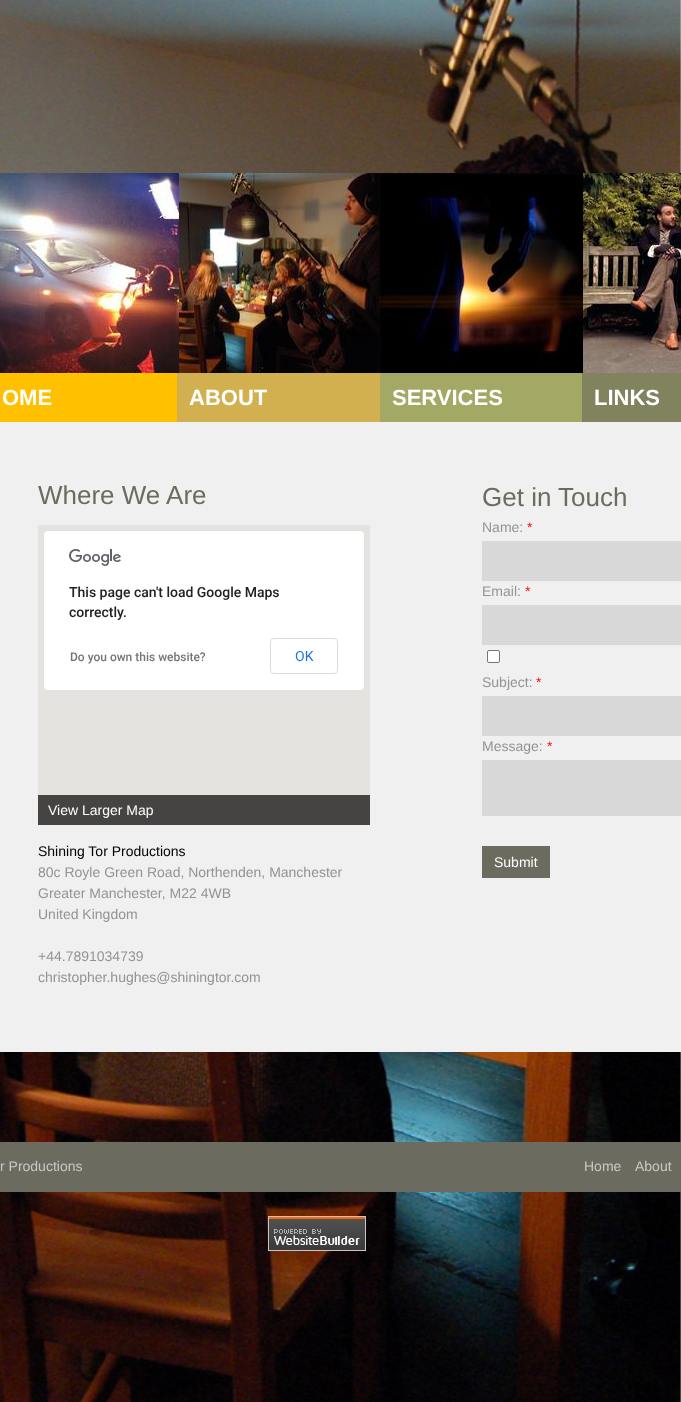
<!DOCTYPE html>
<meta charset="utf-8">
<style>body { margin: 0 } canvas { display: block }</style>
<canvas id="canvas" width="681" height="1402"></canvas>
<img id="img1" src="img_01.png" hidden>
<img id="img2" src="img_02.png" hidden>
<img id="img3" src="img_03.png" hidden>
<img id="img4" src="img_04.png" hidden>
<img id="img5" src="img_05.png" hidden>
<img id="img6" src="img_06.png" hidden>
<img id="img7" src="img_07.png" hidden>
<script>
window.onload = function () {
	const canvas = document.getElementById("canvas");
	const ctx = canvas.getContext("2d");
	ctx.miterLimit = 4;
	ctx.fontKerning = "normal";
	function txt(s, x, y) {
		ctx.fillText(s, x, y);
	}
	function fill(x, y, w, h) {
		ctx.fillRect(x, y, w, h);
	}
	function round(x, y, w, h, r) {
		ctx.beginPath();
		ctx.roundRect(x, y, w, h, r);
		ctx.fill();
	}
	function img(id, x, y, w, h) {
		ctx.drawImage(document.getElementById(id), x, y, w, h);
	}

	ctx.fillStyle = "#FFFFFF";
	fill(0, 0, 681, 1402);
	img("img1", 0, 0, 681, 1402);
	img("img2", 0, 173, 179, 200);
	img("img3", 179, 173, 200, 200);
	img("img4", 379, 173, 204, 200);
	img("img5", 583, 173, 98, 200);
	ctx.fillStyle = "#FFC000";
	fill(0, 373, 177, 49);
	ctx.fillStyle = "#D3B04F";
	fill(177, 373, 203, 49);
	ctx.fillStyle = "#A3A865";
	fill(380, 373, 202, 49);
	ctx.fillStyle = "#81835F";
	fill(582, 373, 99, 49);
	ctx.fillStyle = "#F0F0F0";
	fill(0, 422, 681, 630);
	ctx.fillStyle = "#E5E3DF";
	fill(38, 525, 332, 270);
	ctx.fillStyle = "#FFFFFF";
	round(43, 530, 322, 161, 5);
	ctx.beginPath();
	ctx.roundRect(43.5, 530.5, 321, 160, 4.5);
	ctx.strokeStyle = "rgba(0, 0, 0, 0.12)";
	ctx.stroke();
	img("img6", 69, 549, 52, 17);
	ctx.beginPath();
	ctx.roundRect(270.5, 638.5, 67, 35, 3.5);
	ctx.strokeStyle = "#DADCE0";
	ctx.stroke();
	ctx.fillStyle = "#454443";
	fill(38, 795, 332, 30);
	ctx.fillStyle = "#D8D8D8";
	fill(482, 541, 199, 40);
	fill(482, 605, 199, 40);
	ctx.fillStyle = "#FFFFFF";
	ctx.beginPath();
	ctx.roundRect(487.5, 650.5, 12, 12, 1.5);
	ctx.fill();
	ctx.strokeStyle = "#767676";
	ctx.stroke();
	ctx.fillStyle = "#D8D8D8";
	fill(482, 696, 199, 40);
	fill(482, 760, 199, 56);
	ctx.fillStyle = "#6B6C5F";
	fill(482, 846, 68, 32);
	fill(0, 1142, 681, 50);
	img("img7", 268, 1216, 98, 35);
	ctx.font = "bold 22px Liberation Sans";
	ctx.fillStyle = "#FFFFFF";
	txt("OME", 2, 405);
	txt("ABOUT", 189, 405);
	txt("SERVICES", 392, 405);
	txt("LINKS", 594, 405);
	ctx.font = "26px Liberation Sans";
	ctx.fillStyle = "#6B6C5F";
	txt("Where We Are", 38, 504);
	txt("Get in Touch", 482, 506);
	ctx.font = "500 14px Roboto";
	ctx.fillStyle = "#212121";
	txt("This page can't load Google Maps", 69, 597);
	txt("correctly.", 69, 617);
	ctx.font = "500 12px Roboto";
	ctx.fillStyle = "#757575";
	txt("Do you own this website?", 70, 661);
	ctx.font = "14px Roboto";
	ctx.fillStyle = "#1A73E8";
	txt("OK", 295, 661);
	ctx.font = "14px Liberation Sans";
	ctx.fillStyle = "#FFFFFF";
	txt("View Larger Map", 48, 815);
	ctx.fillStyle = "#939393";
	txt("Name:", 482, 532);
	ctx.fillStyle = "#FF0000";
	txt("*", 527, 532);
	ctx.fillStyle = "#939393";
	txt("Email:", 482, 596);
	ctx.fillStyle = "#FF0000";
	txt("*", 525, 596);
	ctx.fillStyle = "#939393";
	txt("Subject:", 482, 687);
	ctx.fillStyle = "#FF0000";
	txt("*", 536, 687);
	ctx.fillStyle = "#939393";
	txt("Message:", 482, 751);
	ctx.fillStyle = "#FF0000";
	txt("*", 547, 751);
	ctx.fillStyle = "#FFFFFF";
	txt("Submit", 494, 867);
	ctx.fillStyle = "#000000";
	txt("Shining Tor Productions", 38, 856);
	ctx.fillStyle = "#939393";
	txt("80c Royle Green Road, Northenden, Manchester", 38, 877);
	txt("Greater Manchester, M22 4WB", 38, 898);
	txt("United Kingdom", 38, 919);
	txt("+44.7891034739", 38, 961);
	txt("christopher.hughes@shiningtor.com", 38, 982);
	ctx.fillStyle = "#C9C8C8";
	txt("r Productions", 0, 1171);
	txt("Home", 584, 1171);
	txt("About", 635, 1171);
};
</script>
